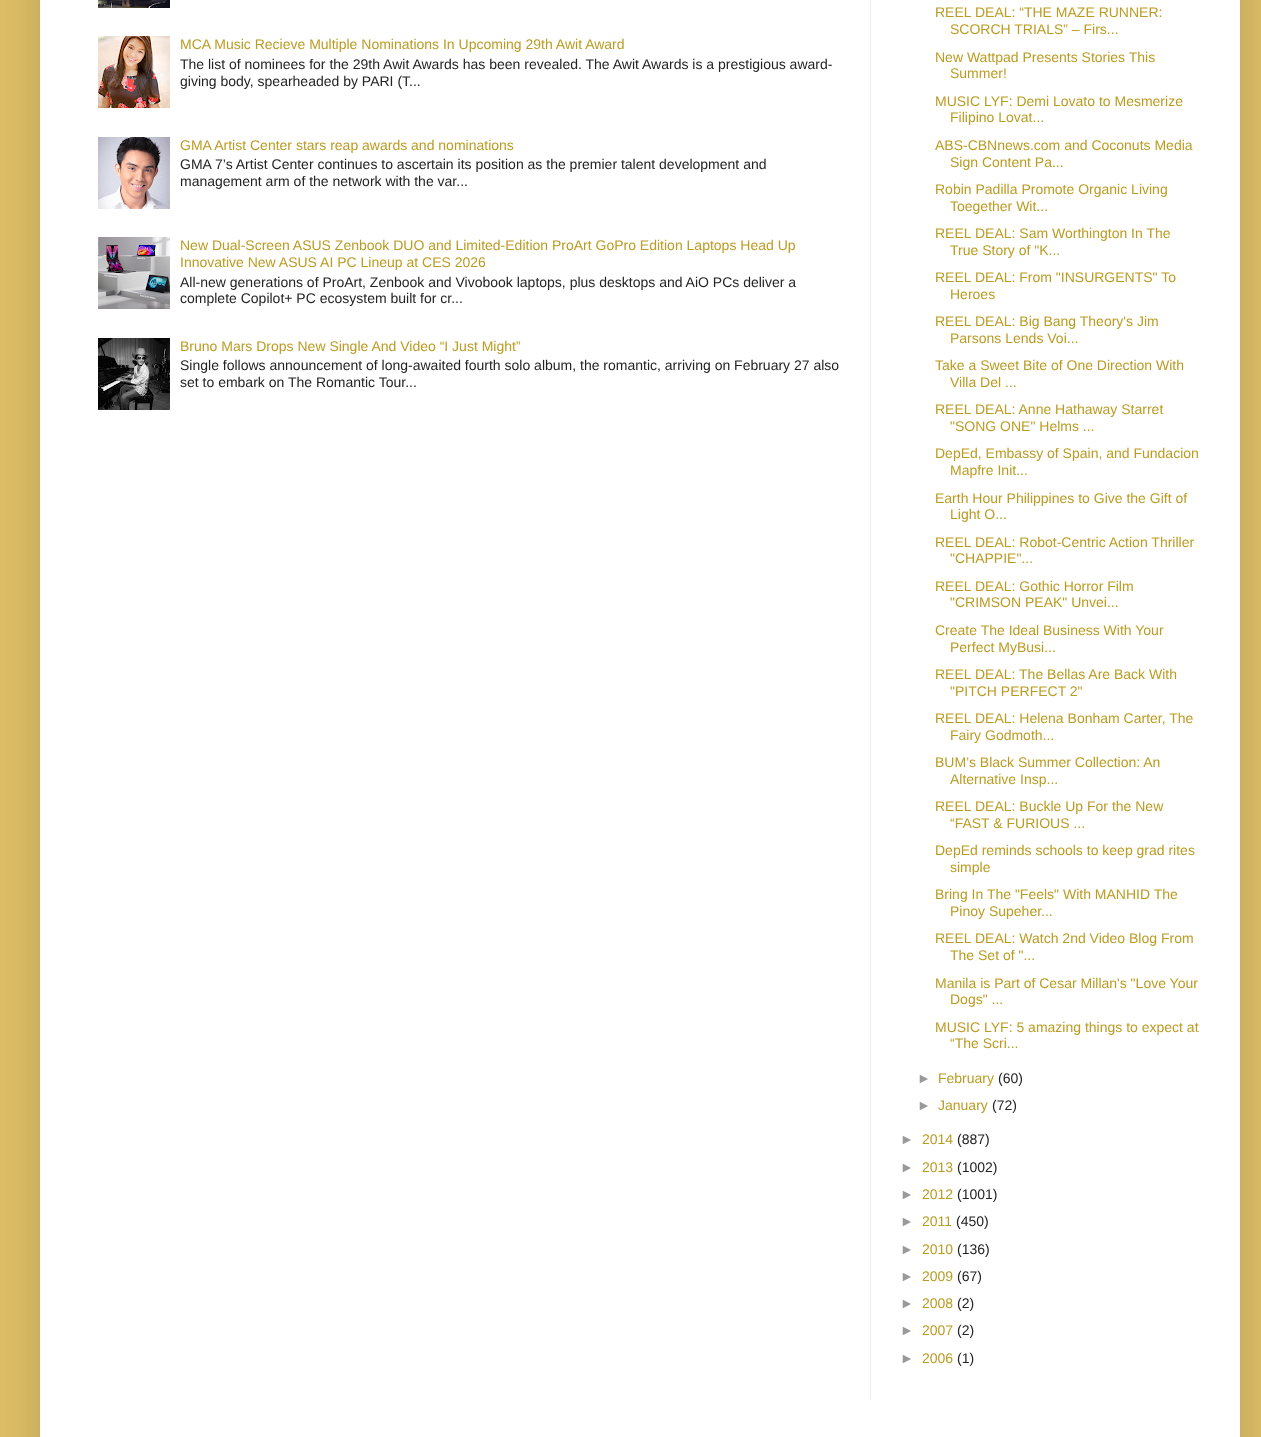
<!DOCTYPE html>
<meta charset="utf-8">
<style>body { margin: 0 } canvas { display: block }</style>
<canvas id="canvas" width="1261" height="1437"></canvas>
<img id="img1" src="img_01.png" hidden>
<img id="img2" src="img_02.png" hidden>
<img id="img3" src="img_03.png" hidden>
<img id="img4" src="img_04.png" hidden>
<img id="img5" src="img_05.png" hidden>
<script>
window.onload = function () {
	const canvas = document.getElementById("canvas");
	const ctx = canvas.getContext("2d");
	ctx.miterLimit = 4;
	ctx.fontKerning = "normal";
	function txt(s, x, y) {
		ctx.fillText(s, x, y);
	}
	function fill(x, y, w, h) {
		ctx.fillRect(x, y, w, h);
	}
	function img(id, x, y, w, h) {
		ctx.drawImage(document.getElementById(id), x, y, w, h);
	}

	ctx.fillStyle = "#DDBE66";
	fill(0, 0, 1261, 1437);
	ctx.fillStyle = "rgba(0, 0, 0, 0.15)";
	ctx.filter = "blur(20px)";
	ctx.beginPath();
	ctx.rect(40, -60, 1200, 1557);
	ctx.fill();
	ctx.filter = "none";
	ctx.fillStyle = "#FFFFFF";
	fill(40, 0, 1200, 1437);
	ctx.fillStyle = "#EEEEEE";
	fill(870, 0, 1, 1400);
	img("img1", 98, 0, 72, 8);
	img("img2", 98, 36, 72, 72);
	img("img3", 98, 137, 72, 72);
	img("img4", 98, 237, 72, 72);
	img("img5", 98, 338, 72, 72);
	ctx.font = "14px Liberation Sans";
	ctx.fillStyle = "#BB9B22";
	txt("MCA Music Recieve Multiple Nominations In Upcoming 29th Awit Award", 180, 49);
	ctx.fillStyle = "#232323";
	txt("The list of nominees for the 29th Awit Awards has been revealed. The Awit Awards is a prestigious award-", 180, 69);
	txt("giving body, spearheaded by PARI (T...", 180, 86);
	ctx.fillStyle = "#BB9B22";
	txt("GMA Artist Center stars reap awards and nominations", 180, 150);
	ctx.fillStyle = "#232323";
	txt("GMA 7’s Artist Center continues to ascertain its position as the premier talent development and", 180, 169);
	txt("management arm of the network with the var...", 180, 186);
	ctx.fillStyle = "#BB9B22";
	txt("New Dual-Screen ASUS Zenbook DUO and Limited-Edition ProArt GoPro Edition Laptops Head Up", 180, 250);
	txt("Innovative New ASUS AI PC Lineup at CES 2026", 180, 267);
	ctx.fillStyle = "#232323";
	txt("All-new generations of ProArt, Zenbook and Vivobook laptops, plus desktops and AiO PCs deliver a", 180, 287);
	txt("complete Copilot+ PC ecosystem built for cr...", 180, 303);
	ctx.fillStyle = "#BB9B22";
	txt("Bruno Mars Drops New Single And Video “I Just Might”", 180, 351);
	ctx.fillStyle = "#232323";
	txt("Single follows announcement of long-awaited fourth solo album, the romantic, arriving on February 27 also", 180, 370);
	txt("set to embark on The Romantic Tour...", 180, 387);
	ctx.fillStyle = "#BB9B22";
	txt("REEL DEAL: “THE MAZE RUNNER:", 935, 17);
	txt("SCORCH TRIALS” – Firs...", 950, 34);
	txt("New Wattpad Presents Stories This", 935, 62);
	txt("Summer!", 950, 78);
	txt("MUSIC LYF: Demi Lovato to Mesmerize", 935, 106);
	txt("Filipino Lovat...", 950, 122);
	txt("ABS-CBNnews.com and Coconuts Media", 935, 150);
	txt("Sign Content Pa...", 950, 167);
	txt("Robin Padilla Promote Organic Living", 935, 194);
	txt("Toegether Wit...", 950, 211);
	txt("REEL DEAL: Sam Worthington In The", 935, 238);
	txt("True Story of \"K...", 950, 255);
	txt("REEL DEAL: From \"INSURGENTS\" To", 935, 282);
	txt("Heroes", 950, 299);
	txt("REEL DEAL: Big Bang Theory's Jim", 935, 326);
	txt("Parsons Lends Voi...", 950, 343);
	txt("Take a Sweet Bite of One Direction With", 935, 370);
	txt("Villa Del ...", 950, 387);
	txt("REEL DEAL: Anne Hathaway Starret", 935, 414);
	txt("\"SONG ONE\" Helms ...", 950, 431);
	txt("DepEd, Embassy of Spain, and Fundacion", 935, 458);
	txt("Mapfre Init...", 950, 475);
	txt("Earth Hour Philippines to Give the Gift of", 935, 503);
	txt("Light O...", 950, 519);
	txt("REEL DEAL: Robot-Centric Action Thriller", 935, 547);
	txt("\"CHAPPIE\"...", 950, 563);
	txt("REEL DEAL: Gothic Horror Film", 935, 591);
	txt("\"CRIMSON PEAK\" Unvei...", 950, 607);
	txt("Create The Ideal Business With Your", 935, 635);
	txt("Perfect MyBusi...", 950, 652);
	txt("REEL DEAL: The Bellas Are Back With", 935, 679);
	txt("\"PITCH PERFECT 2\"", 950, 696);
	txt("REEL DEAL: Helena Bonham Carter, The", 935, 723);
	txt("Fairy Godmoth...", 950, 740);
	txt("BUM’s Black Summer Collection: An", 935, 767);
	txt("Alternative Insp...", 950, 784);
	txt("REEL DEAL: Buckle Up For the New", 935, 811);
	txt("“FAST & FURIOUS ...", 950, 828);
	txt("DepEd reminds schools to keep grad rites", 935, 855);
	txt("simple", 950, 872);
	txt("Bring In The \"Feels\" With MANHID The", 935, 899);
	txt("Pinoy Supeher...", 950, 916);
	txt("REEL DEAL: Watch 2nd Video Blog From", 935, 943);
	txt("The Set of \"...", 950, 960);
	txt("Manila is Part of Cesar Millan's \"Love Your", 935, 988);
	txt("Dogs\" ...", 950, 1004);
	txt("MUSIC LYF: 5 amazing things to expect at", 935, 1032);
	txt("“The Scri...", 950, 1048);
	ctx.fillStyle = "#999999";
	txt("►", 917, 1083);
	ctx.fillStyle = "#BB9B22";
	txt("February", 938, 1083);
	ctx.fillStyle = "#232323";
	txt("(60)", 998, 1083);
	ctx.fillStyle = "#999999";
	txt("►", 917, 1110);
	ctx.fillStyle = "#BB9B22";
	txt("January", 938, 1110);
	ctx.fillStyle = "#232323";
	txt("(72)", 992, 1110);
	ctx.fillStyle = "#999999";
	txt("►", 900, 1144);
	ctx.fillStyle = "#BB9B22";
	txt("2014", 922, 1144);
	ctx.fillStyle = "#232323";
	txt("(887)", 957, 1144);
	ctx.fillStyle = "#999999";
	txt("►", 900, 1172);
	ctx.fillStyle = "#BB9B22";
	txt("2013", 922, 1172);
	ctx.fillStyle = "#232323";
	txt("(1002)", 957, 1172);
	ctx.fillStyle = "#999999";
	txt("►", 900, 1199);
	ctx.fillStyle = "#BB9B22";
	txt("2012", 922, 1199);
	ctx.fillStyle = "#232323";
	txt("(1001)", 957, 1199);
	ctx.fillStyle = "#999999";
	txt("►", 900, 1226);
	ctx.fillStyle = "#BB9B22";
	txt("2011", 922, 1226);
	ctx.fillStyle = "#232323";
	txt("(450)", 956, 1226);
	ctx.fillStyle = "#999999";
	txt("►", 900, 1254);
	ctx.fillStyle = "#BB9B22";
	txt("2010", 922, 1254);
	ctx.fillStyle = "#232323";
	txt("(136)", 957, 1254);
	ctx.fillStyle = "#999999";
	txt("►", 900, 1281);
	ctx.fillStyle = "#BB9B22";
	txt("2009", 922, 1281);
	ctx.fillStyle = "#232323";
	txt("(67)", 957, 1281);
	ctx.fillStyle = "#999999";
	txt("►", 900, 1308);
	ctx.fillStyle = "#BB9B22";
	txt("2008", 922, 1308);
	ctx.fillStyle = "#232323";
	txt("(2)", 957, 1308);
	ctx.fillStyle = "#999999";
	txt("►", 900, 1335);
	ctx.fillStyle = "#BB9B22";
	txt("2007", 922, 1335);
	ctx.fillStyle = "#232323";
	txt("(2)", 957, 1335);
	ctx.fillStyle = "#999999";
	txt("►", 900, 1363);
	ctx.fillStyle = "#BB9B22";
	txt("2006", 922, 1363);
	ctx.fillStyle = "#232323";
	txt("(1)", 957, 1363);
};
</script>
